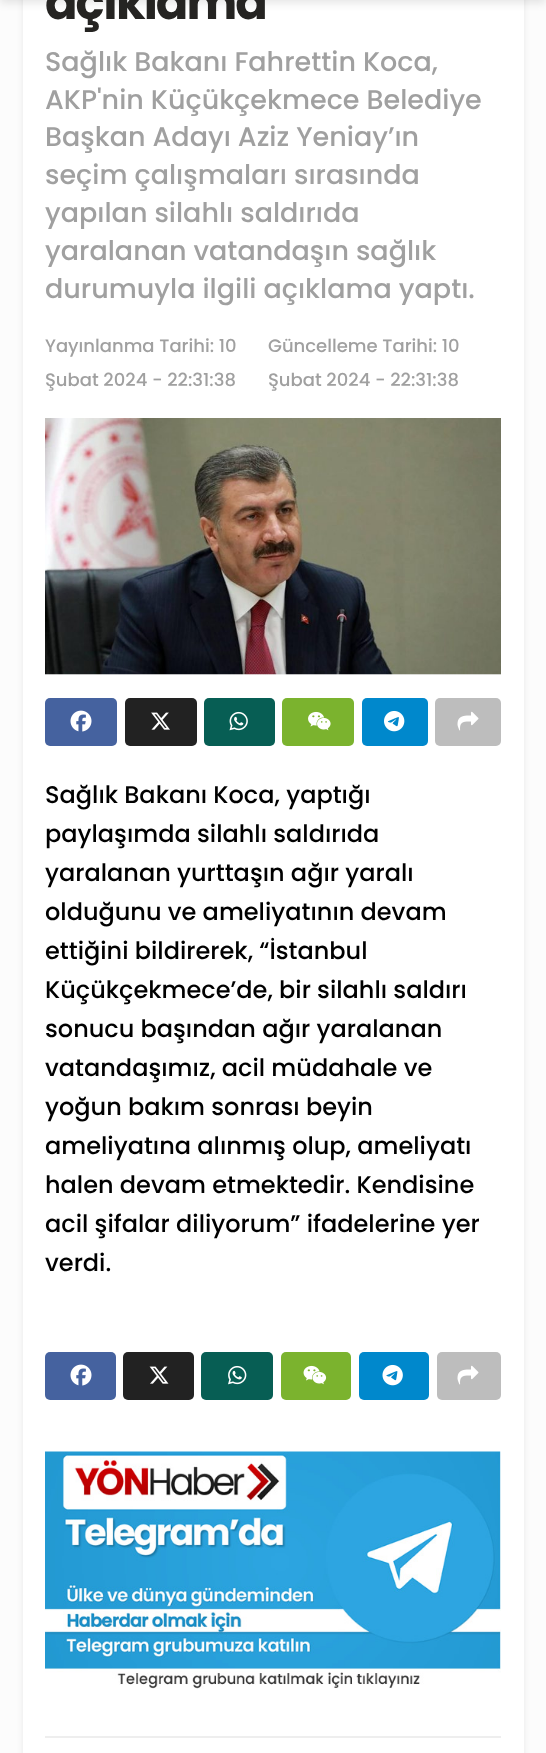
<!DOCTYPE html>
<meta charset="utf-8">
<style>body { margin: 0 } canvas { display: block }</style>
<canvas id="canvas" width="546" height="1753"></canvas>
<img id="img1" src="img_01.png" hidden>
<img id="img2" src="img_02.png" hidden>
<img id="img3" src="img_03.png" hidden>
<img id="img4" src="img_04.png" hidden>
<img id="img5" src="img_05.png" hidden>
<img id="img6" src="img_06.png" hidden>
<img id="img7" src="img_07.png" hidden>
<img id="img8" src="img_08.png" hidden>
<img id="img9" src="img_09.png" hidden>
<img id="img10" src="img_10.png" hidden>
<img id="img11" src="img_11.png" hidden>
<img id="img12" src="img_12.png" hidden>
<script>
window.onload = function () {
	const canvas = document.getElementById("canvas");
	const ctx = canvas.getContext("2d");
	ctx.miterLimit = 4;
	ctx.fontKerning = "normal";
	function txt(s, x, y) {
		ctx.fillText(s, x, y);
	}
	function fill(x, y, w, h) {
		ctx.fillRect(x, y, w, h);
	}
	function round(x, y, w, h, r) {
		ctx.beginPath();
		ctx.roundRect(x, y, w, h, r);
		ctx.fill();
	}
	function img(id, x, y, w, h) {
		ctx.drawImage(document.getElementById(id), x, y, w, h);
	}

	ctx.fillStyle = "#FCFCFC";
	fill(0, 0, 546, 1753);
	ctx.fillStyle = "rgba(0, 0, 0, 0.08)";
	ctx.filter = "blur(3px)";
	ctx.beginPath();
	ctx.rect(23, -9, 501, 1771);
	ctx.fill();
	ctx.filter = "none";
	ctx.fillStyle = "#FFFFFF";
	fill(23, 0, 501, 1753);
	ctx.fillStyle = "rgba(0, 0, 0, 0.1)";
	ctx.filter = "blur(4.5px)";
	ctx.beginPath();
	ctx.rect(0, -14, 546, 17);
	ctx.fill();
	ctx.filter = "none";
	ctx.fillStyle = "#F7F7F7";
	fill(45, 674, 456, 1);
	img("img1", 45, 418, 456, 257);
	ctx.fillStyle = "#45629F";
	round(45, 698, 72, 48, 5);
	img("img2", 70, 710, 22, 22);
	ctx.fillStyle = "#222222";
	round(125, 698, 72, 48, 5);
	img("img3", 151, 712, 19, 18);
	ctx.fillStyle = "#075E54";
	round(204, 698, 71, 48, 5);
	img("img4", 229, 711, 19, 20);
	ctx.fillStyle = "#7BB32E";
	round(282, 698, 72, 48, 5);
	img("img5", 308, 711, 23, 20);
	ctx.fillStyle = "#0088CC";
	round(362, 698, 66, 48, 5);
	img("img6", 384, 710, 21, 22);
	ctx.fillStyle = "#BDBDBD";
	round(435, 698, 66, 48, 5);
	img("img7", 457, 711, 22, 20);
	ctx.fillStyle = "#45629F";
	round(45, 1352, 71, 48, 5);
	img("img2", 70, 1364, 22, 22);
	ctx.fillStyle = "#222222";
	round(123, 1352, 71, 48, 5);
	img("img8", 149, 1366, 20, 18);
	ctx.fillStyle = "#075E54";
	round(201, 1352, 72, 48, 5);
	img("img9", 228, 1365, 19, 20);
	ctx.fillStyle = "#7BB32E";
	round(281, 1352, 70, 48, 5);
	img("img10", 303, 1365, 24, 20);
	ctx.fillStyle = "#0088CC";
	round(359, 1352, 70, 48, 5);
	img("img11", 382, 1364, 21, 22);
	ctx.fillStyle = "#BDBDBD";
	round(437, 1352, 64, 48, 5);
	img("img7", 457, 1365, 22, 20);
	img("img12", 45, 1451, 456, 238);
	ctx.fillStyle = "#EEEEEE";
	fill(45, 1736, 456, 2);
	ctx.letterSpacing = "-2px";
	ctx.font = "bold 48px Poppins";
	ctx.fillStyle = "#252422";
	txt("açıklama", 45, 19);
	ctx.letterSpacing = "0px";
	ctx.font = "500 27px Poppins";
	ctx.fillStyle = "#A0A0A0";
	txt("Sağlık Bakanı Fahrettin Koca,", 45, 71);
	txt("AKP'nin Küçükçekmece Belediye", 45, 109);
	txt("Başkan Adayı Aziz Yeniay’ın", 45, 146);
	txt("seçim çalışmaları sırasında", 45, 184);
	txt("yapılan silahlı saldırıda", 45, 222);
	txt("yaralanan vatandaşın sağlık", 45, 260);
	txt("durumuyla ilgili açıklama yaptı.", 45, 298);
	ctx.font = "500 18px Poppins";
	txt("Yayınlanma Tarihi: 10", 45, 352);
	txt("Şubat 2024 - 22:31:38", 45, 386);
	txt("Güncelleme Tarihi: 10", 268, 352);
	txt("Şubat 2024 - 22:31:38", 268, 386);
	ctx.font = "500 24px Poppins";
	ctx.fillStyle = "#000000";
	txt("Sağlık Bakanı Koca, yaptığı", 45, 803);
	txt("paylaşımda silahlı saldırıda", 45, 842);
	txt("yaralanan yurttaşın ağır yaralı", 45, 881);
	txt("olduğunu ve ameliyatının devam", 45, 920);
	txt("ettiğini bildirerek, “İstanbul", 45, 959);
	txt("Küçükçekmece’de, bir silahlı saldırı", 45, 998);
	txt("sonucu başından ağır yaralanan", 45, 1037);
	txt("vatandaşımız, acil müdahale ve", 45, 1076);
	txt("yoğun bakım sonrası beyin", 45, 1115);
	txt("ameliyatına alınmış olup, ameliyatı", 45, 1154);
	txt("halen devam etmektedir. Kendisine", 45, 1193);
	txt("acil şifalar diliyorum” ifadelerine yer", 45, 1232);
	txt("verdi.", 45, 1271);
};
</script>
